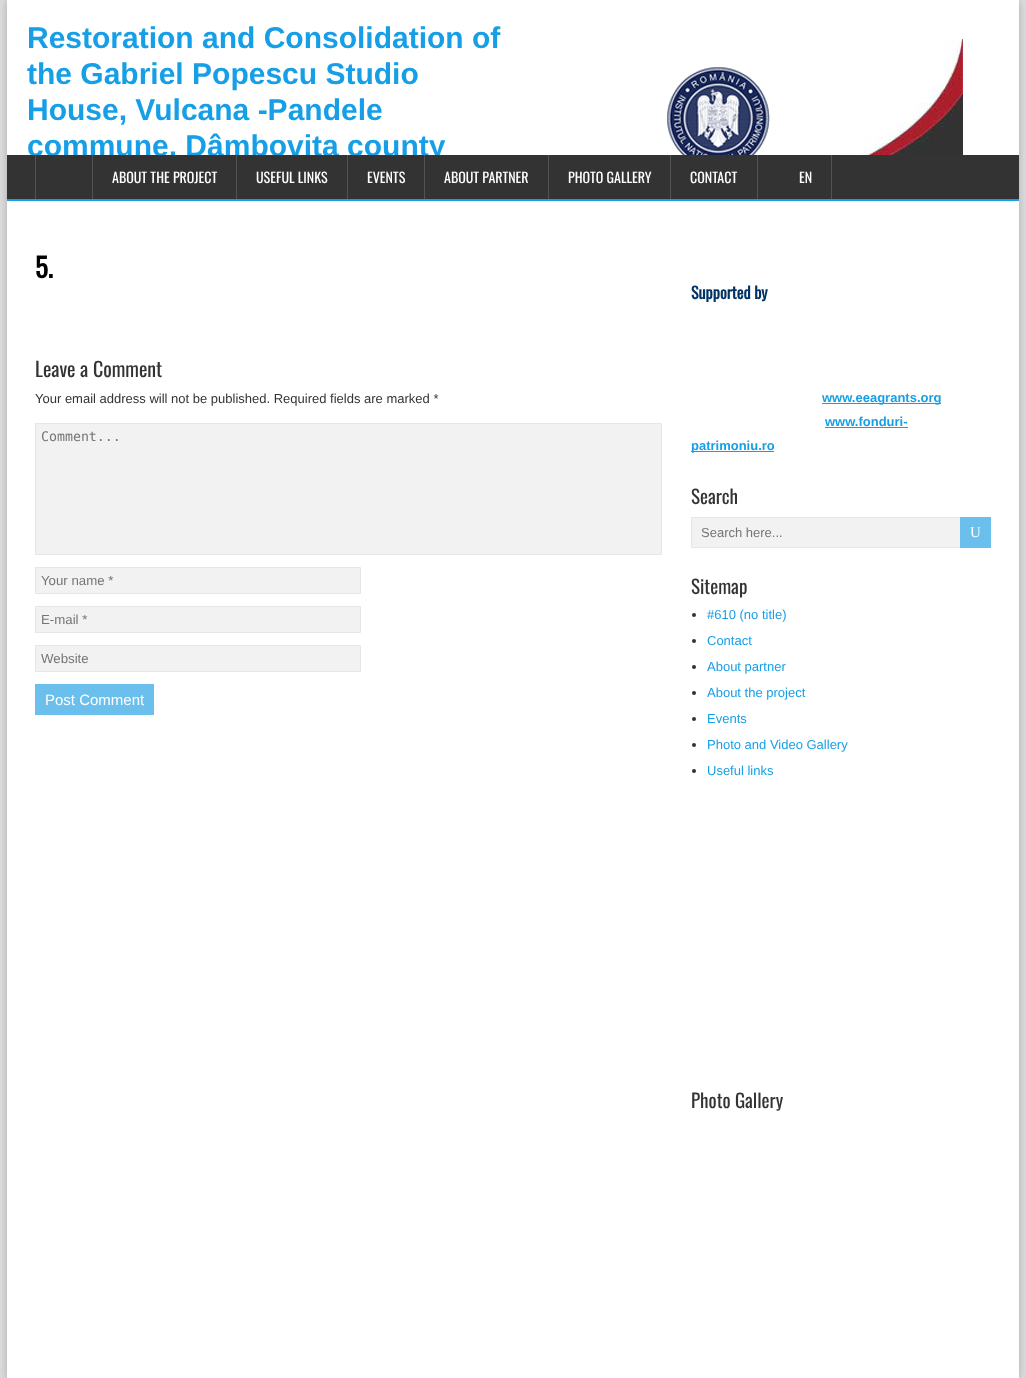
<!DOCTYPE html>
<meta charset="utf-8">
<style>body { margin: 0 } canvas { display: block }</style>
<canvas id="canvas" width="1025" height="1378"></canvas>
<img id="img1" src="img_01.png" hidden>
<script>
window.onload = function () {
	const canvas = document.getElementById("canvas");
	const ctx = canvas.getContext("2d");
	ctx.miterLimit = 4;
	ctx.fontKerning = "normal";
	function txt(s, x, y) {
		ctx.fillText(s, x, y);
	}
	function fill(x, y, w, h) {
		ctx.fillRect(x, y, w, h);
	}
	function img(id, x, y, w, h) {
		ctx.drawImage(document.getElementById(id), x, y, w, h);
	}

	ctx.fillStyle = "#DEDEDE";
	fill(0, 0, 1025, 1378);
	ctx.fillStyle = "#AAAAAA";
	ctx.filter = "blur(5px)";
	ctx.beginPath();
	ctx.rect(7, 0, 1012, 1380);
	ctx.fill();
	ctx.filter = "none";
	ctx.fillStyle = "#FFFFFF";
	fill(7, 0, 1012, 1378);
	img("img1", 667, 39, 296, 116);
	ctx.fillStyle = "#169FE6";
	fill(7, 199, 1012, 2);
	ctx.fillStyle = "#F2F2F2";
	ctx.beginPath();
	ctx.rect(35.5, 423.5, 626, 131);
	ctx.fill();
	ctx.strokeStyle = "#E6E6E6";
	ctx.stroke();
	ctx.beginPath();
	ctx.rect(35.5, 567.5, 325, 26);
	ctx.fill();
	ctx.stroke();
	ctx.beginPath();
	ctx.rect(35.5, 606.5, 325, 26);
	ctx.fill();
	ctx.stroke();
	ctx.beginPath();
	ctx.rect(35.5, 645.5, 325, 26);
	ctx.fill();
	ctx.stroke();
	ctx.fillStyle = "#6ABFEC";
	fill(35, 684, 119, 31);
	ctx.fillStyle = "#169FE6";
	fill(822, 403, 119, 1);
	fill(825, 427, 83, 1);
	fill(691, 451, 83, 1);
	ctx.fillStyle = "#F2F2F2";
	fill(692, 518, 268, 29);
	ctx.strokeRect(691.5, 517.5, 298, 30);
	ctx.fillStyle = "#6ABFEC";
	fill(960, 517, 31, 31);
	ctx.fillStyle = "#333333";
	ctx.beginPath();
	ctx.arc(694, 615, 2, 0, Math.PI * 2);
	ctx.fill();
	ctx.beginPath();
	ctx.arc(694, 641, 2, 0, Math.PI * 2);
	ctx.fill();
	ctx.beginPath();
	ctx.arc(694, 667, 2, 0, Math.PI * 2);
	ctx.fill();
	ctx.beginPath();
	ctx.arc(694, 693, 2, 0, Math.PI * 2);
	ctx.fill();
	ctx.beginPath();
	ctx.arc(694, 719, 2, 0, Math.PI * 2);
	ctx.fill();
	ctx.beginPath();
	ctx.arc(694, 745, 2, 0, Math.PI * 2);
	ctx.fill();
	ctx.beginPath();
	ctx.arc(694, 771, 2, 0, Math.PI * 2);
	ctx.fill();
	ctx.font = "bold 30px Liberation Sans";
	ctx.fillStyle = "#169FE6";
	txt("Restoration and Consolidation of", 27, 48);
	txt("the Gabriel Popescu Studio", 27, 84);
	txt("House, Vulcana -Pandele", 27, 120);
	txt("commune, Dâmboviţa county", 27, 156);
	ctx.fillStyle = "#333333";
	fill(7, 155, 1012, 44);
	ctx.fillStyle = "#535353";
	fill(92, 155, 1, 44);
	fill(35, 155, 1, 44);
	fill(236, 155, 1, 44);
	ctx.font = "14px Oswald";
	ctx.fillStyle = "#FFFFFF";
	txt("ABOUT THE PROJECT", 112, 183);
	ctx.fillStyle = "#535353";
	fill(347, 155, 1, 44);
	ctx.fillStyle = "#FFFFFF";
	txt("USEFUL LINKS", 256, 183);
	ctx.fillStyle = "#535353";
	fill(424, 155, 1, 44);
	ctx.fillStyle = "#FFFFFF";
	txt("EVENTS", 367, 183);
	ctx.fillStyle = "#535353";
	fill(548, 155, 1, 44);
	ctx.fillStyle = "#FFFFFF";
	txt("ABOUT PARTNER", 444, 183);
	ctx.fillStyle = "#535353";
	fill(670, 155, 1, 44);
	ctx.fillStyle = "#FFFFFF";
	txt("PHOTO GALLERY", 568, 183);
	ctx.fillStyle = "#535353";
	fill(757, 155, 1, 44);
	ctx.fillStyle = "#FFFFFF";
	txt("CONTACT", 690, 183);
	ctx.fillStyle = "#535353";
	fill(831, 155, 1, 44);
	ctx.fillStyle = "#FFFFFF";
	txt("EN", 799, 183);
	ctx.font = "bold 27px Oswald";
	ctx.fillStyle = "#000000";
	txt("5.", 35, 278);
	ctx.font = "20px Oswald";
	ctx.fillStyle = "#333333";
	txt("Leave a Comment", 35, 377);
	ctx.font = "13px Liberation Sans";
	txt("Your email address will not be published. Required fields are marked *", 35, 403);
	ctx.font = "13.25px DejaVu Sans Mono";
	ctx.fillStyle = "#757575";
	txt("Comment...", 41, 441);
	ctx.font = "13.25px Liberation Sans";
	txt("Your name *", 41, 585);
	txt("E-mail *", 41, 624);
	txt("Website", 41, 663);
	ctx.font = "15px Liberation Sans";
	ctx.fillStyle = "#FFFFFF";
	txt("Post Comment", 45, 705);
	ctx.font = "bold 16px Oswald";
	ctx.fillStyle = "#003366";
	txt("Supported by", 691, 299);
	ctx.font = "bold 13px Liberation Sans";
	ctx.fillStyle = "#169FE6";
	txt("www.eeagrants.org", 822, 402);
	txt("www.fonduri-", 825, 426);
	txt("patrimoniu.ro", 691, 450);
	ctx.font = "19px Oswald";
	ctx.fillStyle = "#333333";
	txt("Search", 691, 504);
	ctx.font = "13px Liberation Sans";
	ctx.fillStyle = "#757575";
	txt("Search here...", 701, 537);
	ctx.font = "15px Liberation Serif";
	ctx.fillStyle = "#FFFFFF";
	txt("U", 970, 537);
	ctx.font = "19px Oswald";
	ctx.fillStyle = "#333333";
	txt("Sitemap", 691, 594);
	ctx.font = "13px Liberation Sans";
	ctx.fillStyle = "#169FE6";
	txt("#610 (no title)", 707, 619);
	txt("Contact", 707, 645);
	txt("About partner", 707, 671);
	txt("About the project", 707, 697);
	txt("Events", 707, 723);
	txt("Photo and Video Gallery", 707, 749);
	txt("Useful links", 707, 775);
	ctx.font = "19px Oswald";
	ctx.fillStyle = "#333333";
	txt("Photo Gallery", 691, 1108);
};
</script>
